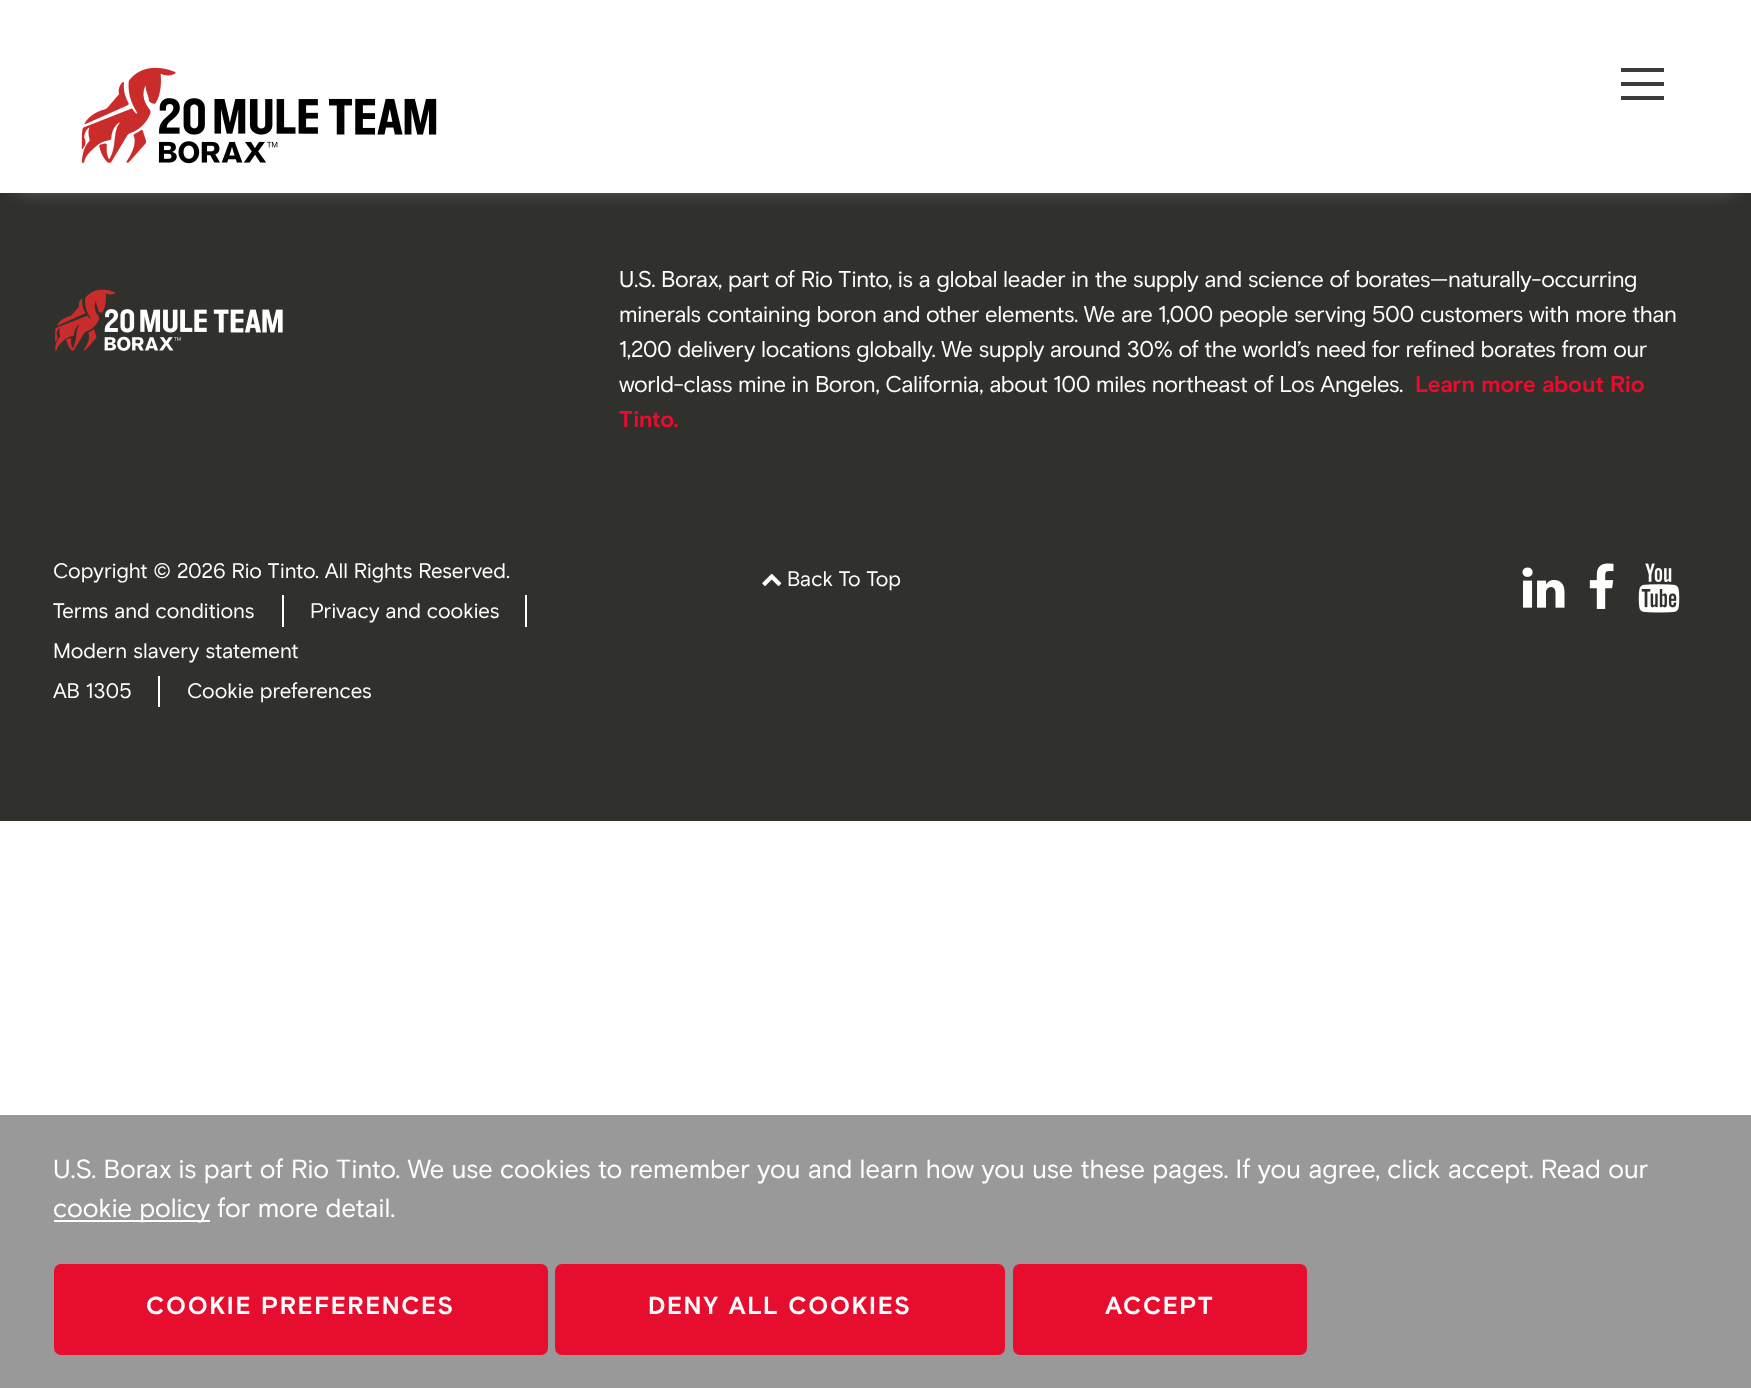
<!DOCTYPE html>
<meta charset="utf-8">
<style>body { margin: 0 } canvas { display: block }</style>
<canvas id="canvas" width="1751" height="1388"></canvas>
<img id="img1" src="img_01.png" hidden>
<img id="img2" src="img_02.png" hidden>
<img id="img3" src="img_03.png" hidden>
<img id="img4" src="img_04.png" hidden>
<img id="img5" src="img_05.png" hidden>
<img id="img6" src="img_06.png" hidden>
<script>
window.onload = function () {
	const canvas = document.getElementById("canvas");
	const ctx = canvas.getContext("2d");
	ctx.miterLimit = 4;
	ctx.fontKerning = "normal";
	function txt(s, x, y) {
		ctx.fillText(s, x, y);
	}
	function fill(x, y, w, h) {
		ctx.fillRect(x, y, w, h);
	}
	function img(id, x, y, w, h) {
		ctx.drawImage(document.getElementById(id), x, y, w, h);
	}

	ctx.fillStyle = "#FFFFFF";
	fill(0, 0, 1751, 1388);
	ctx.fillStyle = "#30312C";
	fill(0, 193, 1751, 628);
	ctx.fillStyle = "#696969";
	ctx.filter = "blur(9px)";
	ctx.beginPath();
	ctx.rect(18, 33, 1716, 158);
	ctx.fill();
	ctx.filter = "none";
	ctx.fillStyle = "#FFFFFF";
	fill(0, 14, 1751, 179);
	img("img1", 81, 67, 356, 97);
	ctx.fillStyle = "#3B3B3B";
	fill(1621, 68, 43, 4);
	fill(1621, 82, 43, 4);
	fill(1621, 96, 43, 4);
	img("img2", 55, 289, 228, 62);
	ctx.fillStyle = "#FFFFFF";
	fill(282, 595, 2, 32);
	fill(525, 595, 2, 32);
	fill(158, 676, 2, 31);
	img("img3", 762, 573, 20, 13);
	img("img4", 1522, 567, 43, 41);
	img("img5", 1589, 563, 25, 46);
	img("img6", 1638, 563, 42, 50);
	ctx.fillStyle = "#999999";
	fill(0, 1115, 1751, 273);
	ctx.fillStyle = "#FFFFFF";
	fill(54, 1220, 156, 2);
	ctx.fillStyle = "#E60D2E";
	ctx.beginPath();
	ctx.roundRect(55, 1265, 492, 89, 6);
	ctx.fill();
	ctx.strokeStyle = "#E60D2E";
	ctx.lineWidth = 2;
	ctx.stroke();
	ctx.beginPath();
	ctx.roundRect(556, 1265, 448, 89, 6);
	ctx.fill();
	ctx.stroke();
	ctx.beginPath();
	ctx.roundRect(1014, 1265, 292, 89, 6);
	ctx.fill();
	ctx.stroke();
	ctx.letterSpacing = "-0.35px";
	ctx.font = "22.75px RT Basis";
	ctx.fillStyle = "#FFFFFF";
	txt("U.S. Borax, part of Rio Tinto, is a global leader in the supply and science of borates—naturally-occurring", 619, 287);
	txt("minerals containing boron and other elements. We are 1,000 people serving 500 customers with more than", 619, 322);
	txt("1,200 delivery locations globally. We supply around 30% of the world’s need for refined borates from our", 619, 357);
	txt("world-class mine in Boron, California, about 100 miles northeast of Los Angeles.", 619, 392);
	ctx.letterSpacing = "0px";
	ctx.font = "bold 22.75px RT Basis";
	ctx.fillStyle = "#E60D2E";
	txt("Learn more about Rio", 1415, 392);
	txt("Tinto.", 619, 427);
	ctx.font = "21px RT Basis";
	ctx.fillStyle = "#FFFFFF";
	txt("Copyright © 2026 Rio Tinto. All Rights Reserved.", 53, 578);
	txt("Terms and conditions", 53, 618);
	txt("Privacy and cookies", 310, 618);
	txt("Modern slavery statement", 53, 658);
	txt("AB 1305", 53, 698);
	txt("Cookie preferences", 187, 698);
	txt("Back To Top", 787, 586);
	ctx.font = "26.25px RT Basis";
	txt("U.S. Borax is part of Rio Tinto. We use cookies to remember you and learn how you use these pages. If you agree, click accept. Read our", 53, 1178);
	txt("cookie policy for more detail.", 53, 1217);
	ctx.letterSpacing = "1.9px";
	ctx.font = "bold 24.5px RT Basis";
	txt("COOKIE PREFERENCES", 146, 1314);
	txt("DENY ALL COOKIES", 648, 1314);
	txt("ACCEPT", 1105, 1314);
};
</script>
